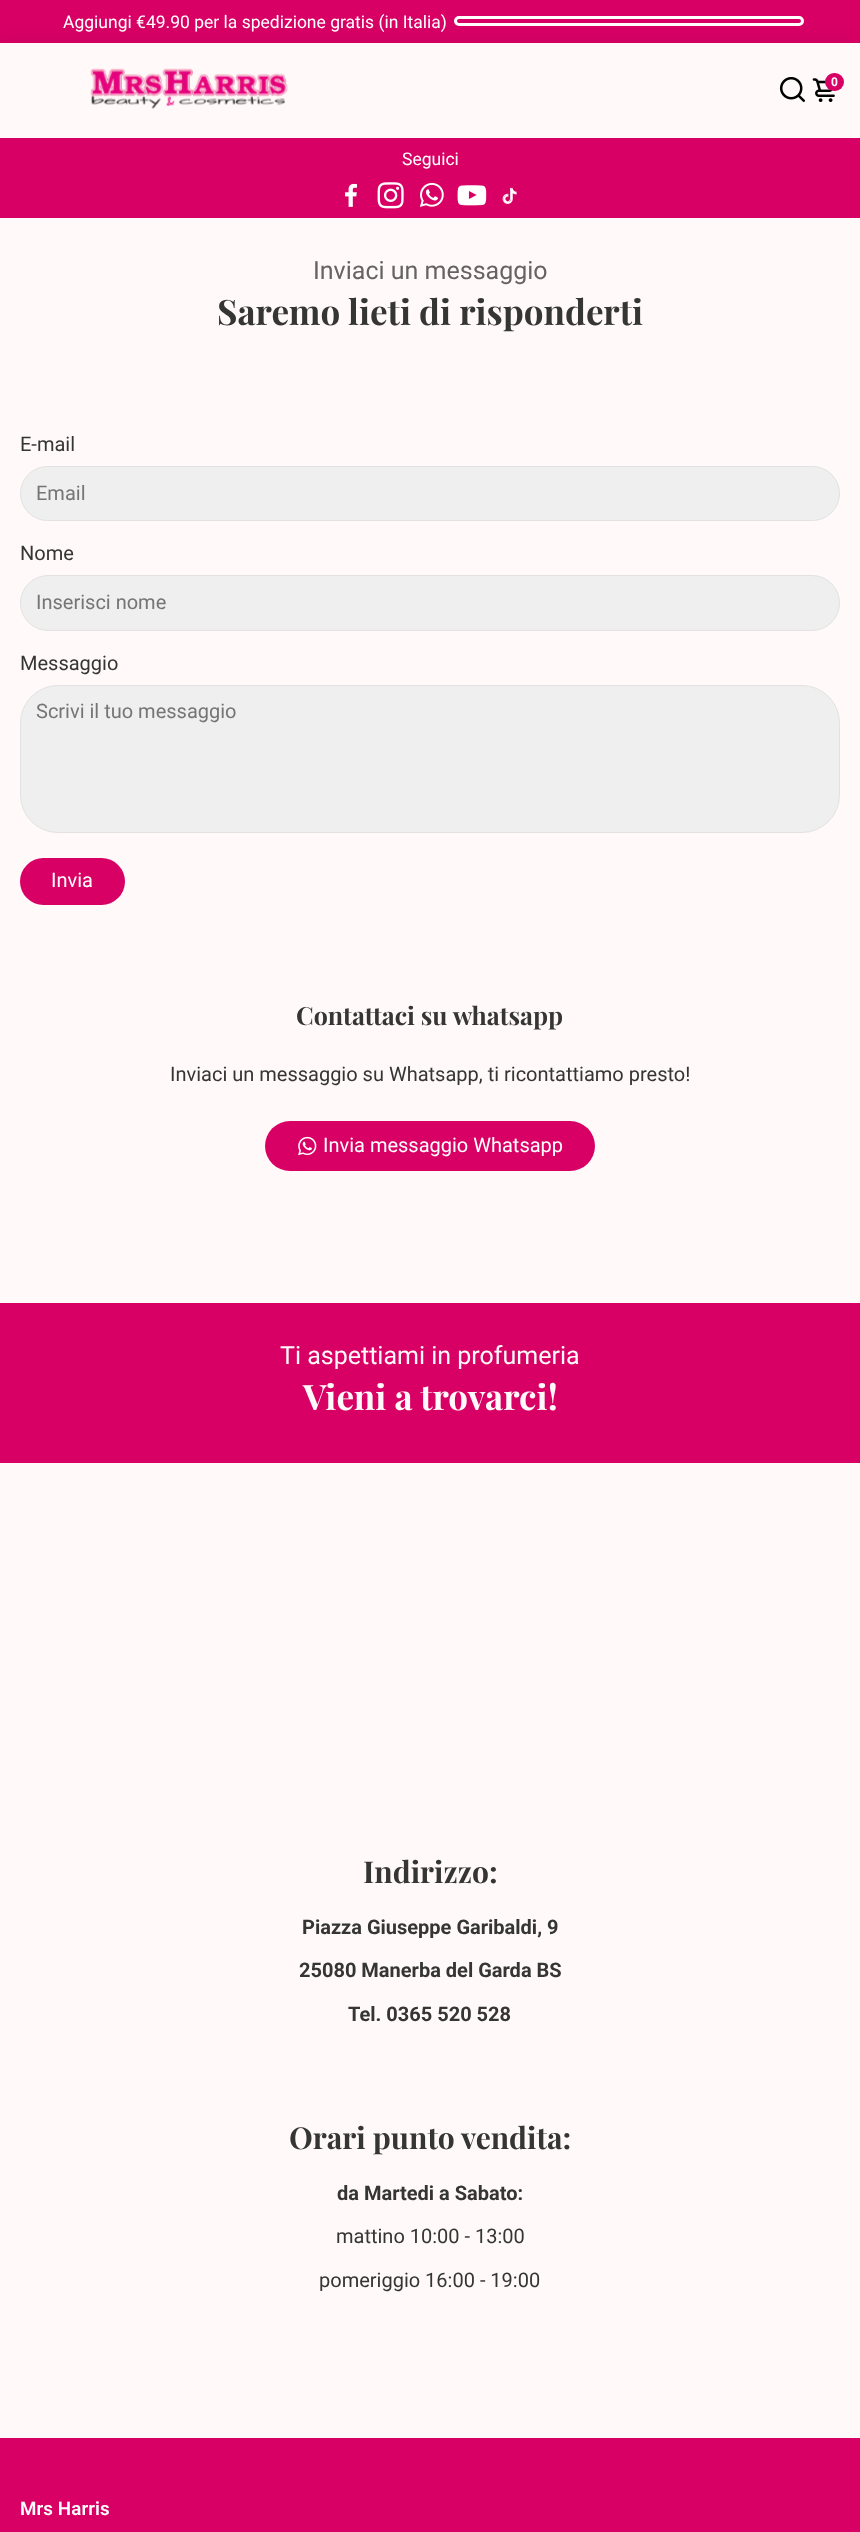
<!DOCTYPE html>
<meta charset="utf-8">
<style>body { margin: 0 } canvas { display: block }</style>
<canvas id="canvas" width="860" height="2532"></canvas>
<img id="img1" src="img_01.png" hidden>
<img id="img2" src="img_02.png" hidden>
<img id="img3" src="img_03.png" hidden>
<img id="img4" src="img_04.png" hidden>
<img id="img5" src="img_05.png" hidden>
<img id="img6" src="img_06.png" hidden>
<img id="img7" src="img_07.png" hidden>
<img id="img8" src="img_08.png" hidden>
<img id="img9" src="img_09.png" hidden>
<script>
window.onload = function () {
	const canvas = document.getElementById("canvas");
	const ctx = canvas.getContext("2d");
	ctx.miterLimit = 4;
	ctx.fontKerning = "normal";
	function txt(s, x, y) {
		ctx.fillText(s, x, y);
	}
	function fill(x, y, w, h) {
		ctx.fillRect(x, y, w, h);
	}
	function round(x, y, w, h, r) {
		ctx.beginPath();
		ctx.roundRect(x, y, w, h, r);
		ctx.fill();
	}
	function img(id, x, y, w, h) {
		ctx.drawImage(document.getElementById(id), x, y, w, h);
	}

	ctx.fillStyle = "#FFF9F9";
	fill(0, 0, 860, 2532);
	ctx.fillStyle = "#D80065";
	fill(0, 0, 860, 43);
	ctx.fillStyle = "rgba(0, 0, 0, 0.06)";
	ctx.filter = "blur(12.5px)";
	ctx.beginPath();
	ctx.rect(0, 43, 860, 95);
	ctx.fill();
	ctx.filter = "none";
	ctx.beginPath();
	ctx.roundRect(455.5, 17.5, 347, 7, 3.5);
	ctx.strokeStyle = "#FFFFFF";
	ctx.lineWidth = 3;
	ctx.stroke();
	ctx.fillStyle = "#FFF9F9";
	fill(0, 43, 860, 95);
	img("img1", 90, 68, 198, 41);
	img("img2", 780, 77, 25, 25);
	img("img3", 812, 78, 23, 24);
	ctx.fillStyle = "#D80065";
	round(825, 73, 19, 18, 9);
	fill(0, 138, 860, 80);
	img("img4", 345, 183, 12, 24);
	img("img5", 377, 182, 27, 27);
	img("img6", 419, 182, 25, 25);
	img("img7", 457, 185, 30, 21);
	img("img8", 502, 187, 15, 17);
	ctx.fillStyle = "#EFEFEF";
	ctx.beginPath();
	ctx.roundRect(20.5, 466.5, 819, 54, 27);
	ctx.fill();
	ctx.strokeStyle = "#E2E2E2";
	ctx.lineWidth = 1;
	ctx.stroke();
	ctx.beginPath();
	ctx.roundRect(20.5, 575.5, 819, 55, 27.5);
	ctx.fill();
	ctx.stroke();
	ctx.beginPath();
	ctx.roundRect(20.5, 685.5, 819, 147, 37.5);
	ctx.fill();
	ctx.stroke();
	ctx.fillStyle = "#D80065";
	round(20, 858, 105, 47, 23.5);
	round(265, 1121, 330, 50, 25);
	img("img9", 298, 1136, 19, 20);
	fill(0, 1303, 860, 160);
	fill(0, 2438, 860, 94);
	ctx.font = "17.5px Roboto";
	ctx.fillStyle = "#FFFFFF";
	txt("Aggiungi €49.90 per la spedizione gratis (in Italia)", 63, 28);
	ctx.font = "bold 12px Roboto";
	txt("0", 831, 86);
	ctx.font = "17.5px Roboto";
	txt("Seguici", 402, 165);
	ctx.font = "25px Roboto";
	ctx.fillStyle = "#686363";
	txt("Inviaci un messaggio", 313, 279);
	ctx.font = "bold 35px Playfair Display";
	ctx.fillStyle = "#353535";
	txt("Saremo lieti di risponderti", 217, 325);
	ctx.font = "20px Roboto";
	txt("E-mail", 20, 451);
	ctx.fillStyle = "#757575";
	txt("Email", 36, 500);
	ctx.fillStyle = "#353535";
	txt("Nome", 20, 560);
	ctx.fillStyle = "#757575";
	txt("Inserisci nome", 36, 609);
	ctx.fillStyle = "#353535";
	txt("Messaggio", 20, 670);
	ctx.fillStyle = "#757575";
	txt("Scrivi il tuo messaggio", 36, 718);
	ctx.fillStyle = "#FFFFFF";
	txt("Invia", 51, 887);
	ctx.font = "bold 25px Playfair Display";
	ctx.fillStyle = "#353535";
	txt("Contattaci su whatsapp", 296, 1025);
	ctx.font = "20px Roboto";
	txt("Inviaci un messaggio su Whatsapp, ti ricontattiamo presto!", 170, 1081);
	ctx.fillStyle = "#FFFFFF";
	txt("Invia messaggio Whatsapp", 323, 1152);
	ctx.font = "25px Roboto";
	ctx.fillStyle = "#FFF9F9";
	txt("Ti aspettiami in profumeria", 280, 1364);
	ctx.font = "bold 35px Playfair Display";
	txt("Vieni a trovarci!", 303, 1410);
	ctx.font = "bold 30px Playfair Display";
	ctx.fillStyle = "#353535";
	txt("Indirizzo:", 363, 1883);
	ctx.font = "bold 20px Roboto";
	txt("Piazza Giuseppe Garibaldi, 9", 302, 1934);
	txt("25080 Manerba del Garda BS", 299, 1977);
	txt("Tel. 0365 520 528", 348, 2021);
	ctx.font = "bold 30px Playfair Display";
	txt("Orari punto vendita:", 289, 2149);
	ctx.font = "bold 20px Roboto";
	txt("da Martedi a Sabato:", 337, 2200);
	ctx.font = "20px Roboto";
	txt("mattino 10:00 - 13:00", 336, 2243);
	txt("pomeriggio 16:00 - 19:00", 319, 2287);
	ctx.letterSpacing = "0.1px";
	ctx.font = "600 18.75px Roboto";
	ctx.fillStyle = "#FFFFFF";
	txt("Mrs Harris", 20, 2515);
};
</script>
